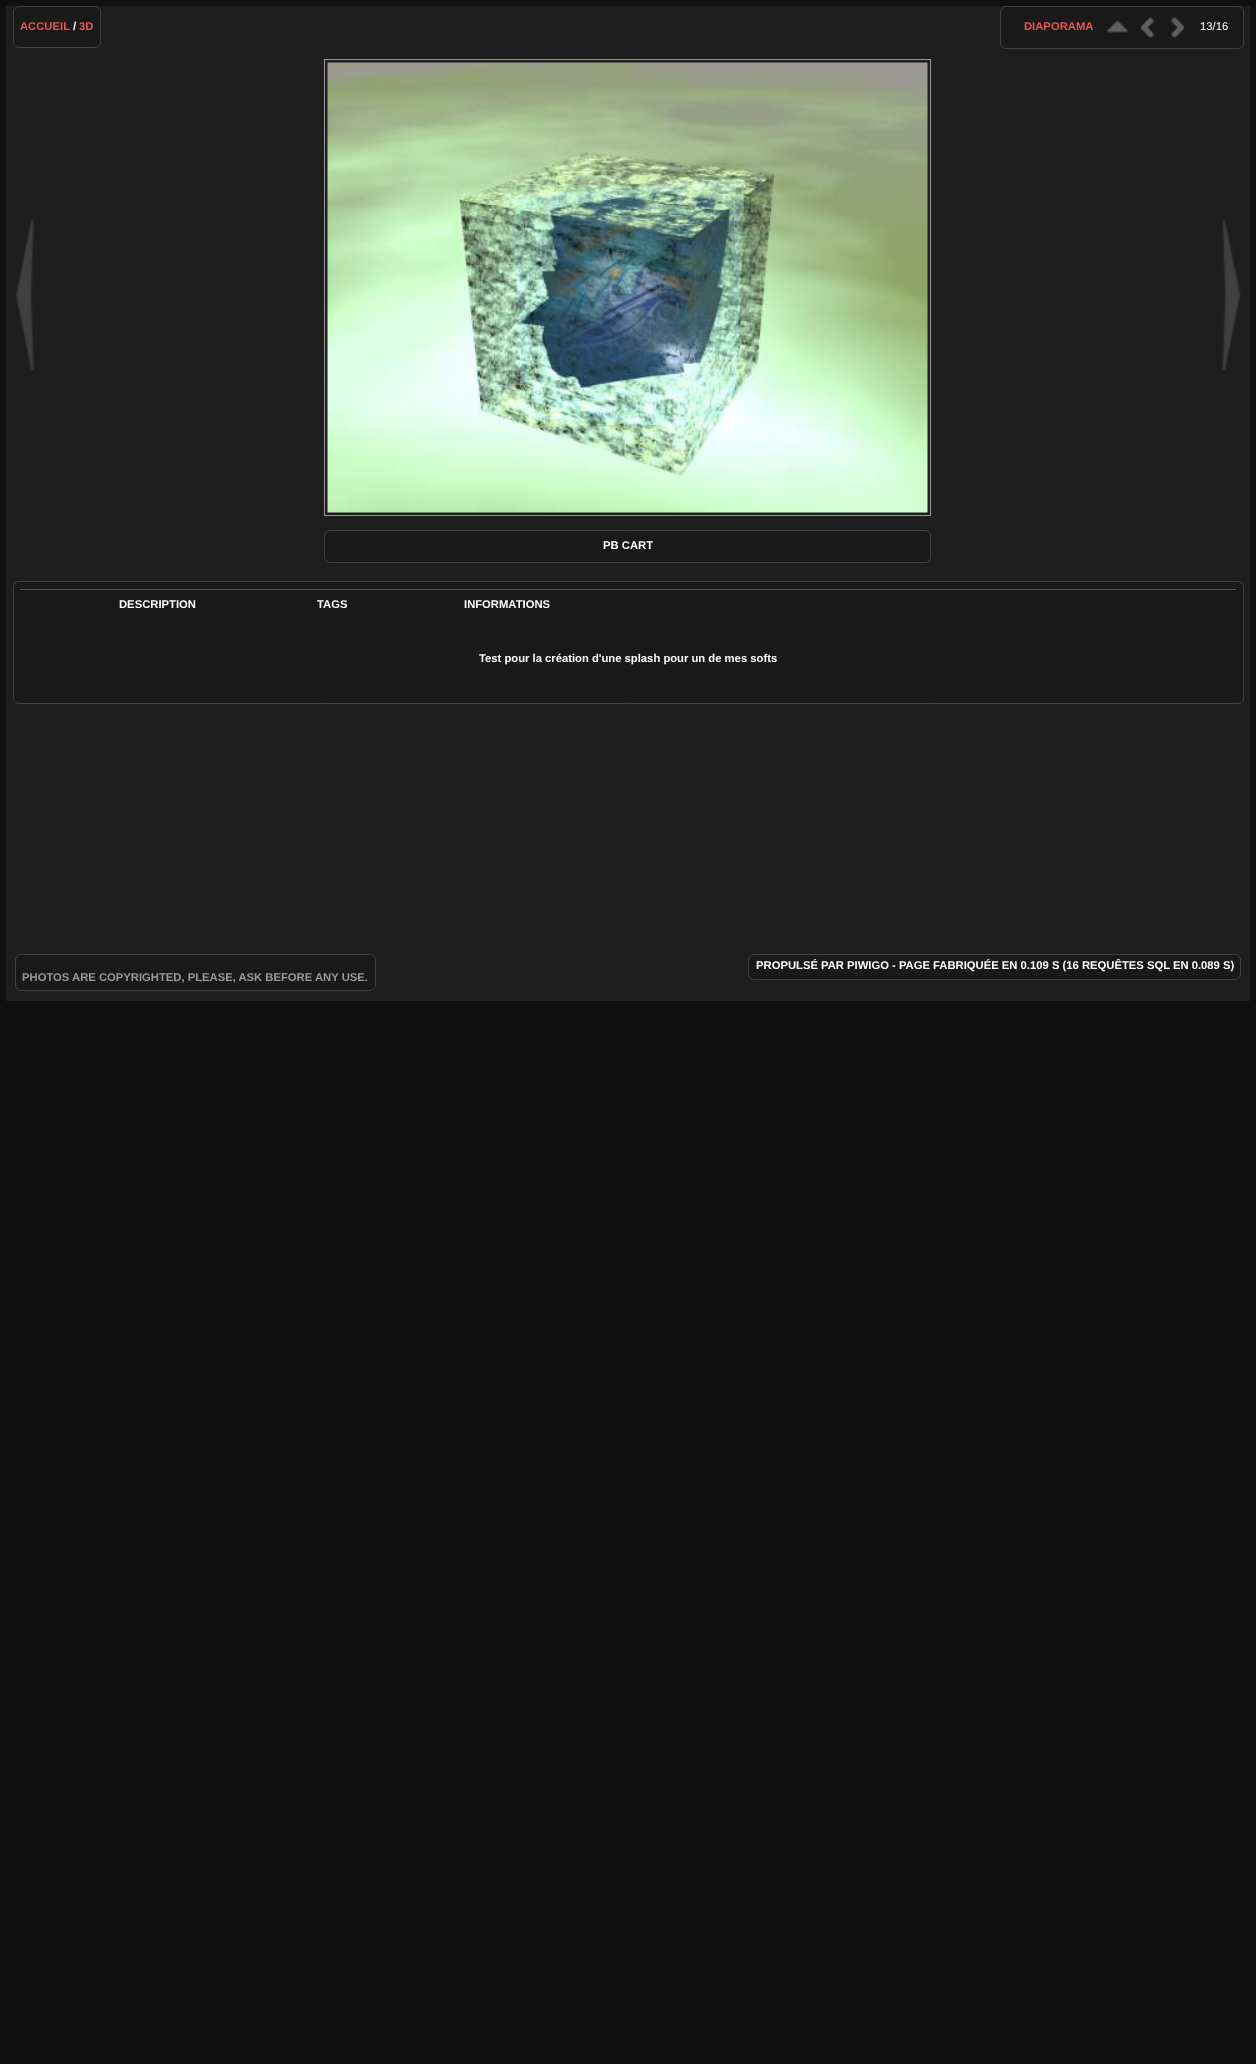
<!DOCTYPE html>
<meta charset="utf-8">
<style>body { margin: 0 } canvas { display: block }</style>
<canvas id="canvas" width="1256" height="2064"></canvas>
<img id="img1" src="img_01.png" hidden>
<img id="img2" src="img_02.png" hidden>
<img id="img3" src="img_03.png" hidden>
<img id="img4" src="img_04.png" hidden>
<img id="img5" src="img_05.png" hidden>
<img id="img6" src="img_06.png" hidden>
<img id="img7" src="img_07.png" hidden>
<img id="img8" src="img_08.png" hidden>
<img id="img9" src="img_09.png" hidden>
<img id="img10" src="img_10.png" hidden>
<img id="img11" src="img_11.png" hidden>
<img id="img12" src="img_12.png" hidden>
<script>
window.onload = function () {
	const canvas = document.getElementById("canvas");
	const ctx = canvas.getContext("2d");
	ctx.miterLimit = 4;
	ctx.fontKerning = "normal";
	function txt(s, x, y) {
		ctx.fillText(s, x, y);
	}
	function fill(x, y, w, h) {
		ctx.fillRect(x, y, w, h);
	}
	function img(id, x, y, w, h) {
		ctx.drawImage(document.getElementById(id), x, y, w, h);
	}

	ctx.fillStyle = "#101010";
	fill(0, 0, 1256, 2064);
	ctx.fillStyle = "#1E1E1E";
	fill(6, 6, 1244, 995);
	img("img1", 13, 7, 88, 40);
	ctx.beginPath();
	ctx.roundRect(13.5, 6.5, 87, 41, 5.5);
	ctx.strokeStyle = "#424242";
	ctx.stroke();
	img("img2", 1000, 7, 243, 41);
	ctx.beginPath();
	ctx.roundRect(1000.5, 6.5, 243, 42, 5.5);
	ctx.stroke();
	img("img3", 1106, 20, 23, 13);
	img("img4", 1140, 17, 14, 21);
	img("img5", 1171, 17, 14, 21);
	img("img6", 16, 220, 18, 151);
	ctx.strokeStyle = "#999999";
	ctx.strokeRect(324.5, 59.5, 606, 456);
	img("img7", 327, 62, 601, 451);
	img("img8", 1222, 220, 19, 151);
	img("img9", 324, 530, 607, 32);
	ctx.beginPath();
	ctx.roundRect(324.5, 530.5, 606, 32, 5.5);
	ctx.strokeStyle = "#424242";
	ctx.stroke();
	img("img10", 13, 582, 1230, 121);
	ctx.beginPath();
	ctx.roundRect(13.5, 581.5, 1230, 122, 5.5);
	ctx.stroke();
	ctx.fillStyle = "#555555";
	fill(20, 589, 1216, 1);
	img("img11", 748, 954, 493, 26);
	ctx.beginPath();
	ctx.roundRect(748.5, 954.5, 492, 25, 5.5);
	ctx.stroke();
	img("img12", 15, 954, 361, 37);
	ctx.beginPath();
	ctx.roundRect(15.5, 954.5, 360, 36, 5.5);
	ctx.stroke();
	ctx.font = "bold 11.25px Liberation Sans";
	ctx.fillStyle = "#E6554F";
	txt("ACCUEIL", 20, 30);
	ctx.fillStyle = "#FFFFFF";
	txt("/", 73, 30);
	ctx.fillStyle = "#E6554F";
	txt("3D", 79, 30);
	txt("DIAPORAMA", 1024, 30);
	ctx.font = "11.25px Liberation Sans";
	ctx.fillStyle = "#FFFFFF";
	txt("13/16", 1200, 30);
	ctx.font = "bold 11.25px Liberation Sans";
	txt("PB CART", 603, 549);
	txt("DESCRIPTION", 119, 608);
	txt("TAGS", 317, 608);
	txt("INFORMATIONS", 464, 608);
	txt("Test pour la création d'une splash pour un de mes softs", 479, 662);
	txt("PROPULSÉ PAR PIWIGO - PAGE FABRIQUÉE EN 0.109 S (16 REQUÊTES SQL EN 0.089 S)", 756, 969);
	ctx.fillStyle = "#999999";
	txt("PHOTOS ARE COPYRIGHTED, PLEASE, ASK BEFORE ANY USE.", 22, 981);
};
</script>
